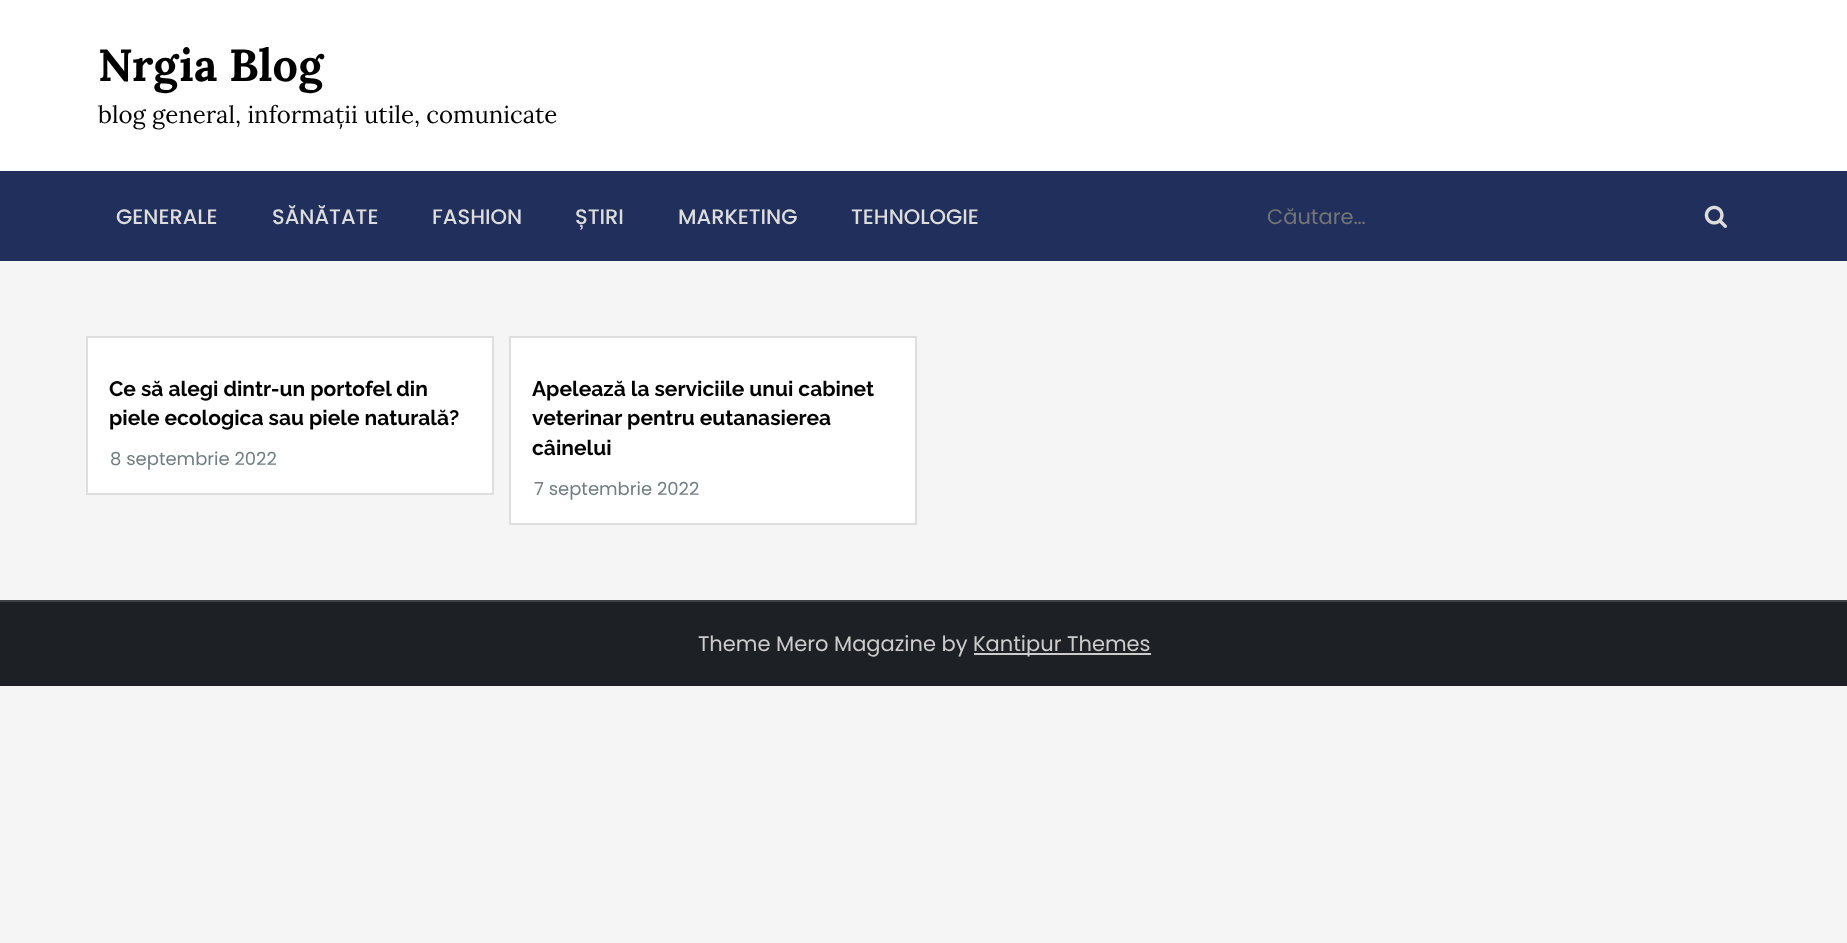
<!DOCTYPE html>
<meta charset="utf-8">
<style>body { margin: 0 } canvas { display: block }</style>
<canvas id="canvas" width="1847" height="943"></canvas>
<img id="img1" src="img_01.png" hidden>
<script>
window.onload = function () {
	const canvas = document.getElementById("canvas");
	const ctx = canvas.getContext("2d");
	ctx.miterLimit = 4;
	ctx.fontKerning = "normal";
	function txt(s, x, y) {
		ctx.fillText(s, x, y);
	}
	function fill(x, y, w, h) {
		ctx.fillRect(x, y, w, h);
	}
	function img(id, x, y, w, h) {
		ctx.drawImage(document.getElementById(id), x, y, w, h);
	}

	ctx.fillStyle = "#F5F5F5";
	fill(0, 0, 1847, 943);
	ctx.fillStyle = "#FFFFFF";
	fill(0, 0, 1847, 171);
	ctx.fillStyle = "#202F5B";
	fill(0, 171, 1847, 90);
	img("img1", 1704, 205, 23, 23);
	ctx.fillStyle = "#FFFFFF";
	ctx.beginPath();
	ctx.rect(87, 337, 406, 157);
	ctx.fill();
	ctx.strokeStyle = "#DEDEDE";
	ctx.lineWidth = 2;
	ctx.stroke();
	ctx.beginPath();
	ctx.rect(510, 337, 406, 187);
	ctx.fill();
	ctx.stroke();
	ctx.fillStyle = "#1D2024";
	fill(0, 602, 1847, 84);
	ctx.fillStyle = "#3F4145";
	fill(0, 600, 1847, 2);
	ctx.fillStyle = "#CCCCCC";
	fill(974, 653, 177, 2);
	ctx.font = "bold 45px Lora";
	ctx.fillStyle = "#000000";
	txt("Nrgia Blog", 98, 81);
	ctx.font = "24px Lora";
	txt("blog general, informații utile, comunicate", 98, 123);
	ctx.font = "500 21px Poppins";
	ctx.fillStyle = "#DDDDDD";
	txt("GENERALE", 116, 224);
	txt("SĂNĂTATE", 272, 224);
	txt("FASHION", 432, 224);
	txt("ȘTIRI", 575, 224);
	txt("MARKETING", 678, 224);
	txt("TEHNOLOGIE", 851, 224);
	ctx.font = "21px Poppins";
	ctx.fillStyle = "#757575";
	txt("Căutare…", 1267, 224);
	ctx.font = "bold 21px Raleway";
	ctx.fillStyle = "#000000";
	txt("Ce să alegi dintr-un portofel din", 109, 396);
	txt("piele ecologica sau piele naturală?", 109, 425);
	ctx.font = "18px Poppins";
	ctx.fillStyle = "#717E81";
	txt("8 septembrie 2022", 110, 465);
	ctx.font = "bold 21px Raleway";
	ctx.fillStyle = "#000000";
	txt("Apelează la serviciile unui cabinet", 532, 396);
	txt("veterinar pentru eutanasierea", 532, 425);
	txt("câinelui", 532, 455);
	ctx.font = "18px Poppins";
	ctx.fillStyle = "#717E81";
	txt("7 septembrie 2022", 534, 495);
	ctx.font = "21px Poppins";
	ctx.fillStyle = "#CCCCCC";
	txt("Theme Mero Magazine by", 698, 651);
	txt("Kantipur Themes", 973, 651);
};
</script>
